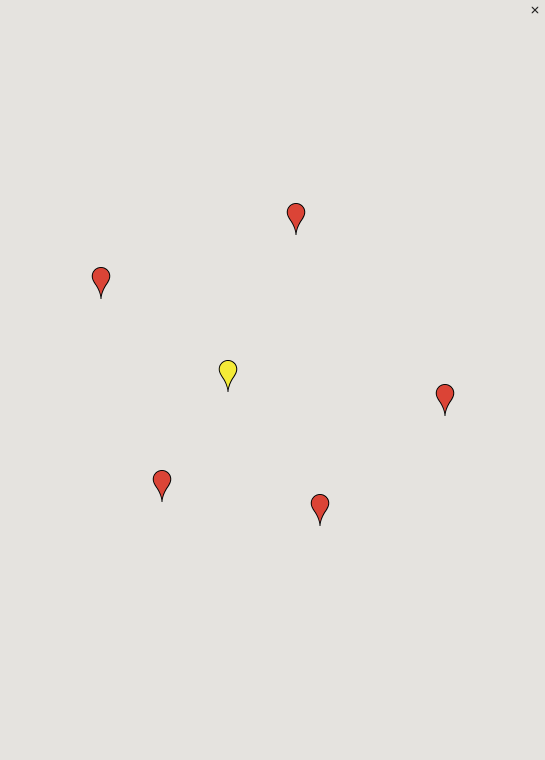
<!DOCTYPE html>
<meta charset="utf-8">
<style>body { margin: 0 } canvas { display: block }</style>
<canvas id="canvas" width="545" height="760"></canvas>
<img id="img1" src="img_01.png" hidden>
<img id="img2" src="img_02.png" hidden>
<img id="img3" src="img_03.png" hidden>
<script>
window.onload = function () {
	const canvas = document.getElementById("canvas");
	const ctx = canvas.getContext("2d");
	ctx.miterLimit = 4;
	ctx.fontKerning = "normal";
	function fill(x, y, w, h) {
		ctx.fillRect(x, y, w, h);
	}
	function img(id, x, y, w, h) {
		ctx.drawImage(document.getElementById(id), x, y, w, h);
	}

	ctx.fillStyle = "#E5E3DF";
	fill(0, 0, 545, 760);
	img("img1", 531, 6, 8, 8);
	img("img2", 286, 203, 20, 32);
	img("img2", 91, 267, 20, 32);
	img("img3", 218, 360, 20, 32);
	img("img2", 435, 384, 20, 32);
	img("img2", 152, 470, 20, 32);
	img("img2", 310, 494, 20, 32);
};
</script>
